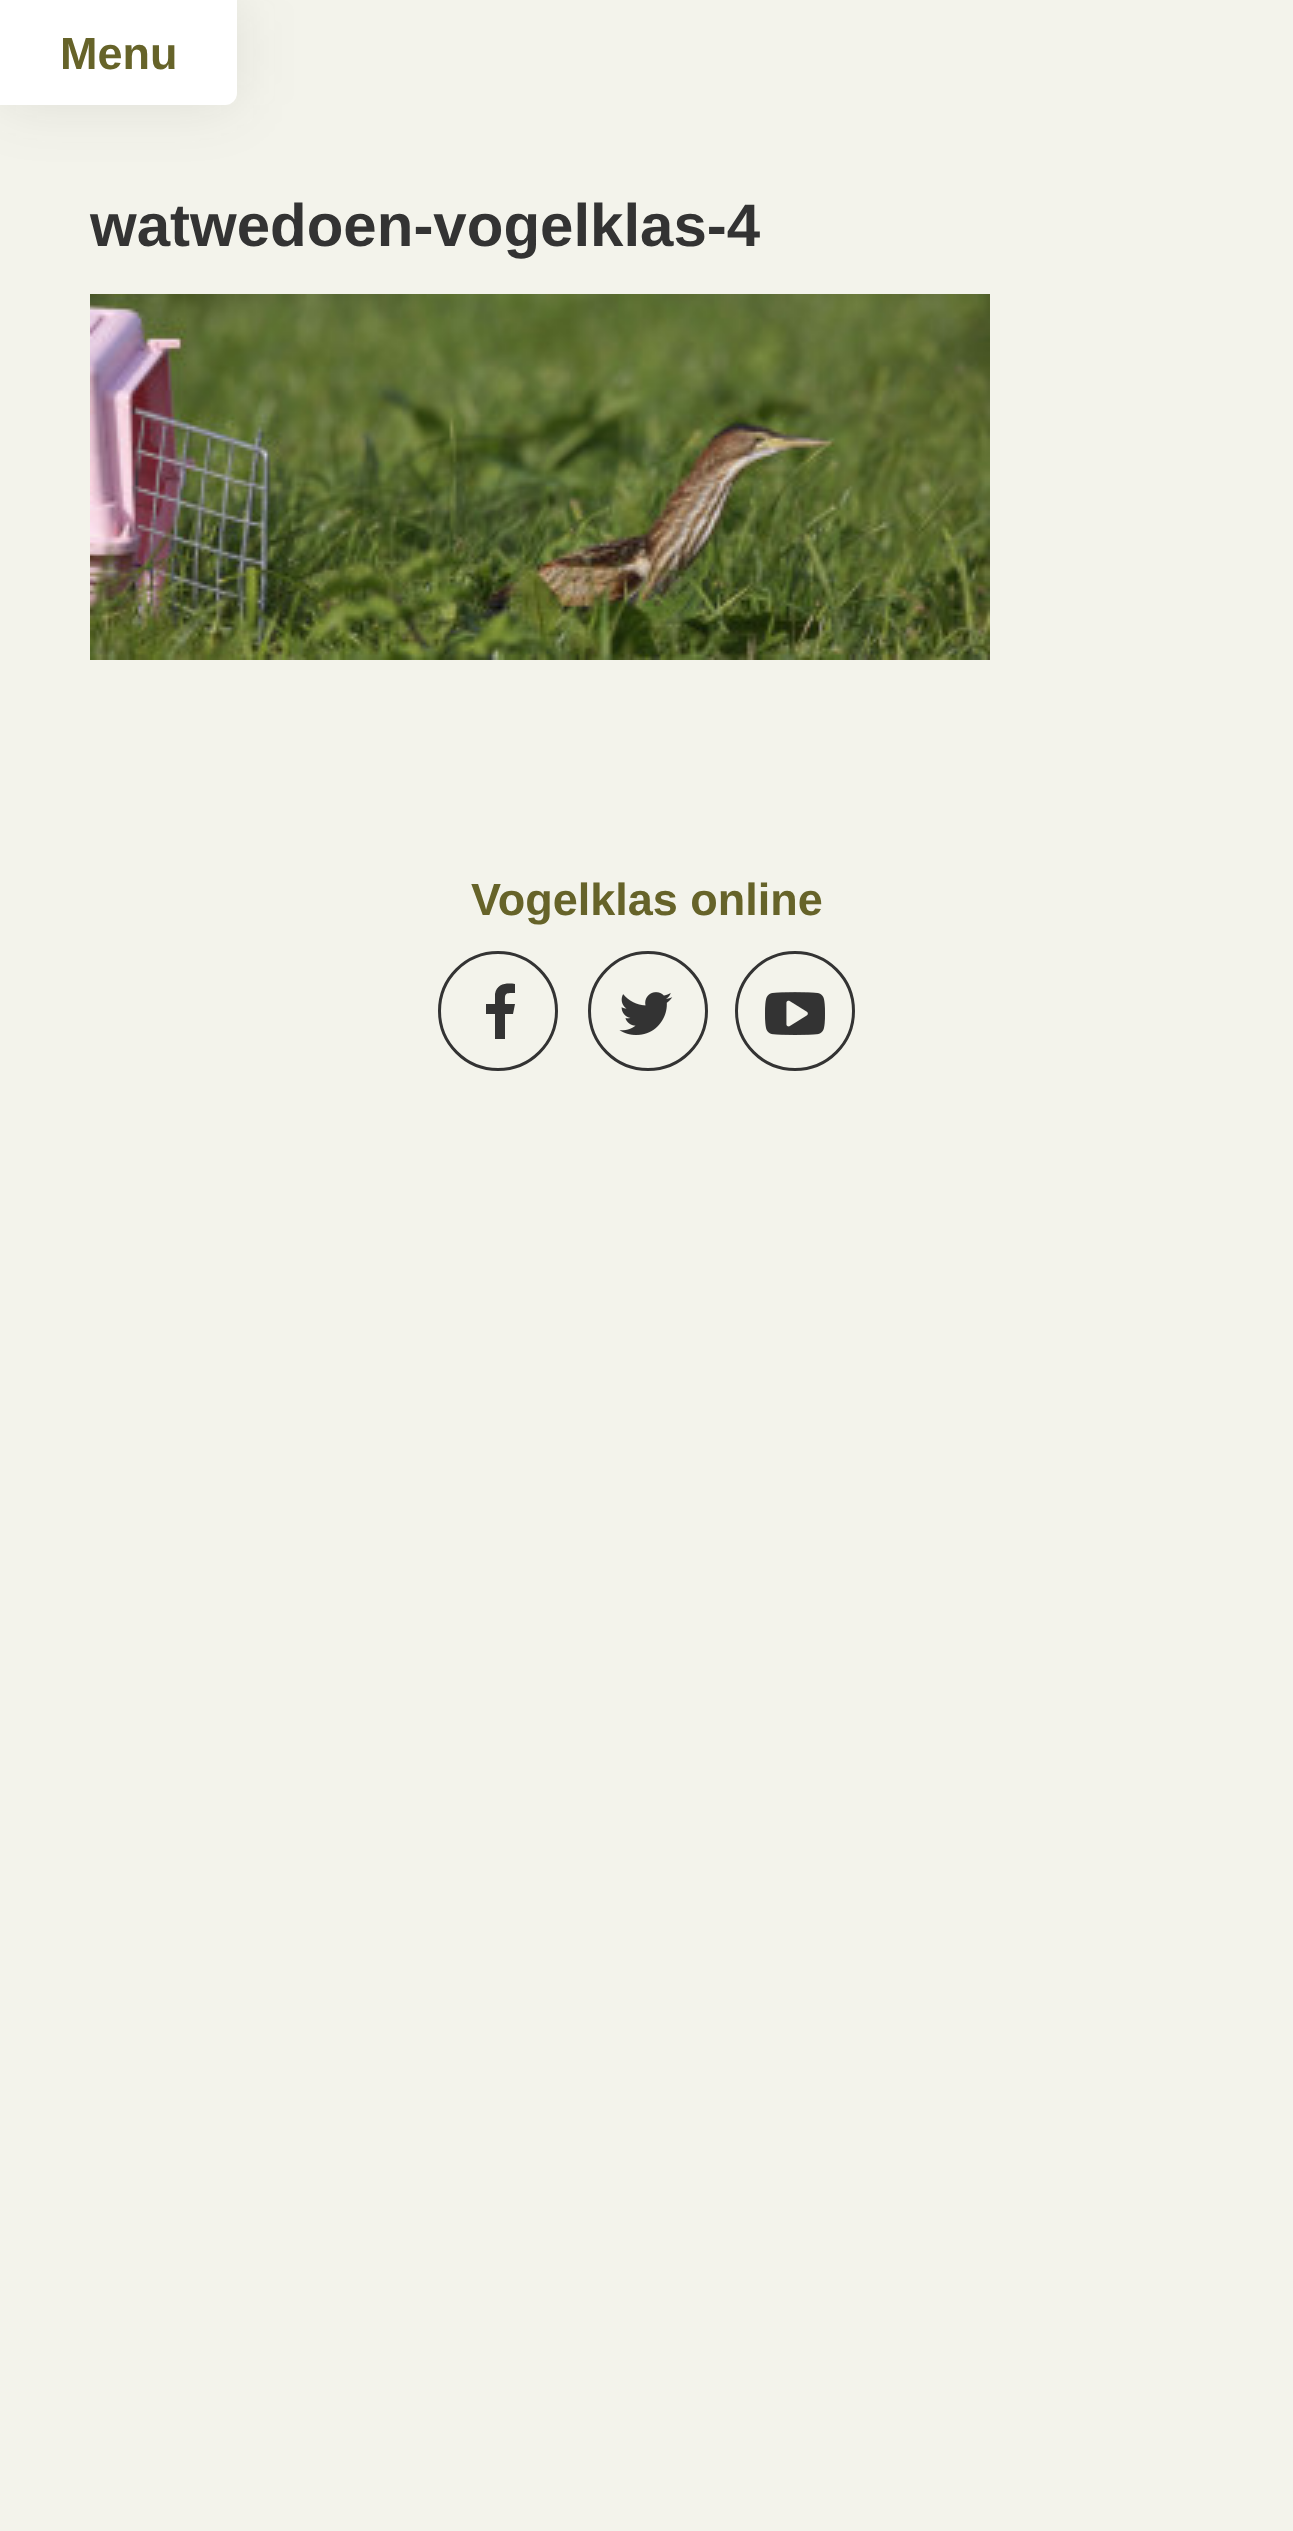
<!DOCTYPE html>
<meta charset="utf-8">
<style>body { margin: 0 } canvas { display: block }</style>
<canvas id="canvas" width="1293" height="2531"></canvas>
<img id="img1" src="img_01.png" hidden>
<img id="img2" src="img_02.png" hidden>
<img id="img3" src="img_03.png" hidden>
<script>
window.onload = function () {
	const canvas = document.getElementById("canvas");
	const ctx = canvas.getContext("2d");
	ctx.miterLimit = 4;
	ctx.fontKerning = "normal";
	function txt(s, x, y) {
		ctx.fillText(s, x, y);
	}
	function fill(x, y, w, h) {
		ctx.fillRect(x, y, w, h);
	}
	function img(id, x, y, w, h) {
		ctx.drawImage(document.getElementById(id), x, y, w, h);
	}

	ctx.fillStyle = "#F3F3EB";
	fill(0, 0, 1293, 2531);
	ctx.fillStyle = "rgba(50, 50, 50, 0.1)";
	ctx.filter = "blur(30px)";
	ctx.beginPath();
	ctx.roundRect(0, 0, 237, 105, 12);
	ctx.fill();
	ctx.filter = "none";
	ctx.fillStyle = "#FFFFFF";
	ctx.beginPath();
	ctx.roundRect(0, 0, 237, 105, [0, 0, 12, 0]);
	ctx.fill();
	img("img1", 90, 294, 900, 366);
	ctx.beginPath();
	ctx.arc(498, 1011, 58.5, 0, Math.PI * 2);
	ctx.strokeStyle = "#333333";
	ctx.lineWidth = 3;
	ctx.stroke();
	ctx.fillStyle = "#333333";
	ctx.beginPath();
	ctx.moveTo(515, 984);
	ctx.lineTo(515, 993);
	ctx.bezierCurveTo(504, 993, 505, 993, 505, 1004);
	ctx.lineTo(515, 1004);
	ctx.lineTo(513, 1014);
	ctx.lineTo(505, 1014);
	ctx.lineTo(505, 1039);
	ctx.lineTo(495, 1039);
	ctx.lineTo(495, 1014);
	ctx.lineTo(486, 1014);
	ctx.lineTo(486, 1004);
	ctx.lineTo(495, 1004);
	ctx.lineTo(495, 994);
	ctx.bezierCurveTo(497, 983, 507, 983, 515, 984);
	ctx.closePath();
	ctx.fill();
	ctx.beginPath();
	ctx.arc(648, 1011, 58.5, 0, Math.PI * 2);
	ctx.stroke();
	img("img2", 619, 992, 54, 43);
	ctx.beginPath();
	ctx.arc(795, 1011, 58.5, 0, Math.PI * 2);
	ctx.stroke();
	img("img3", 765, 992, 60, 43);
	ctx.font = "bold 45px Liberation Sans";
	ctx.fillStyle = "#666329";
	txt("Menu", 60, 69);
	ctx.font = "bold 60px Liberation Sans";
	ctx.fillStyle = "#333333";
	txt("watwedoen-vogelklas-4", 90, 246);
	ctx.font = "bold 45px Liberation Sans";
	ctx.fillStyle = "#666329";
	txt("Vogelklas online", 471, 915);
};
</script>
